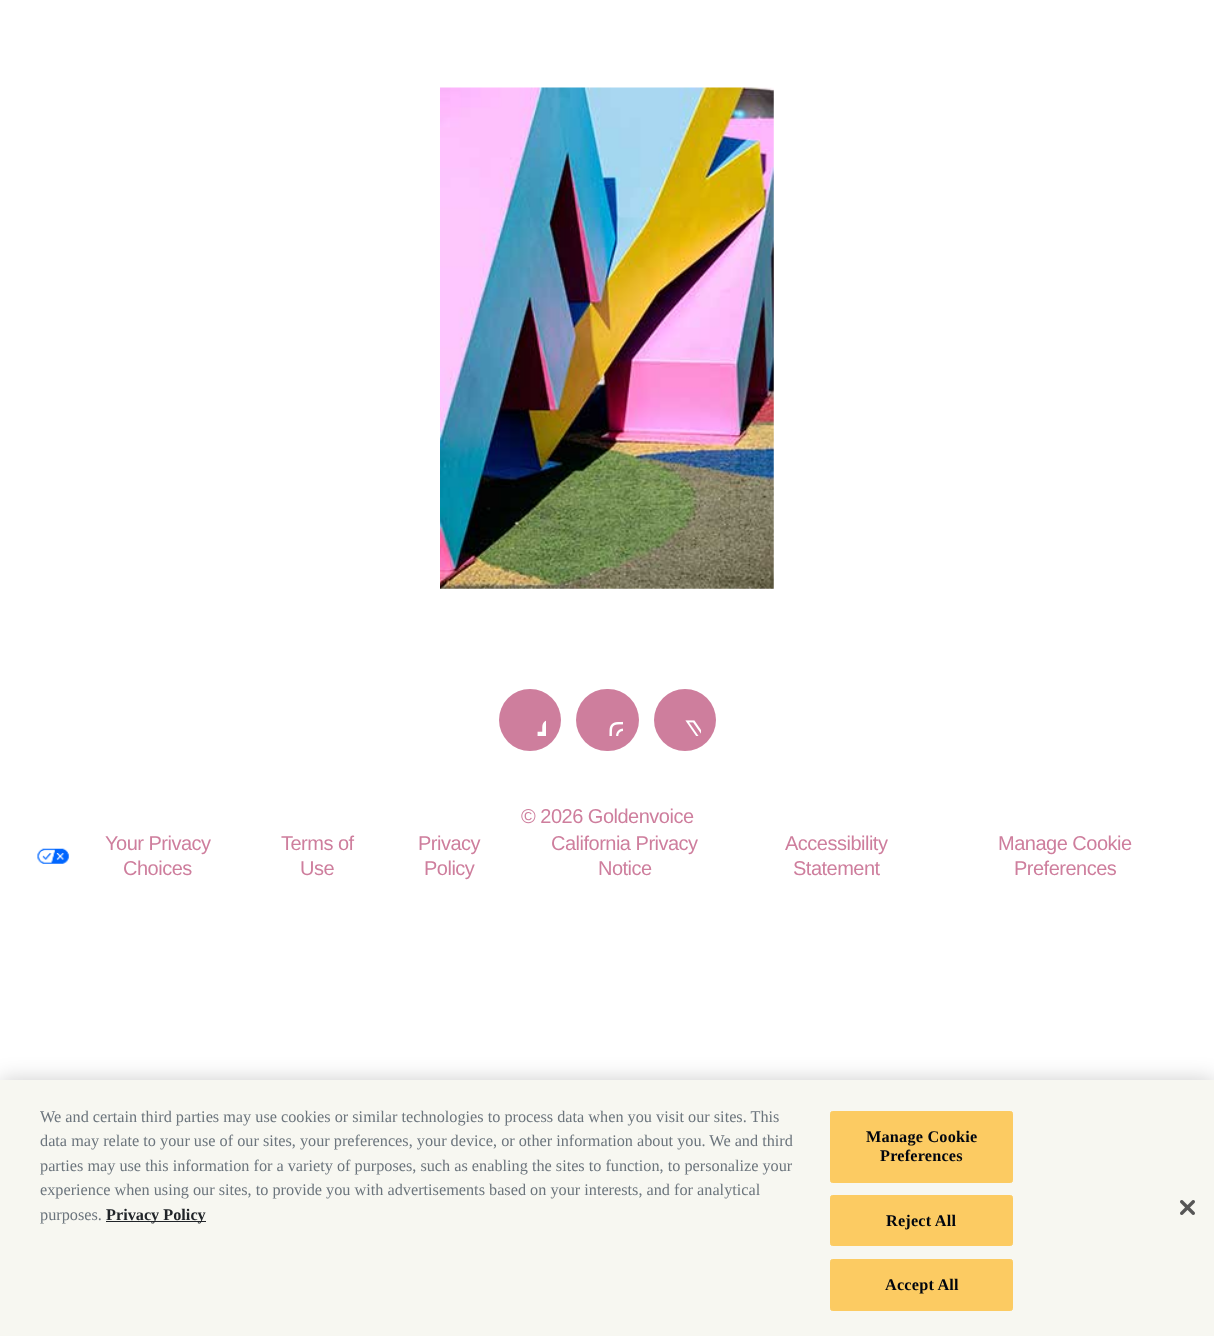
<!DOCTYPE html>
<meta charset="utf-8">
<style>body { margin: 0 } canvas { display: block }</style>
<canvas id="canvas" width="1214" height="1336"></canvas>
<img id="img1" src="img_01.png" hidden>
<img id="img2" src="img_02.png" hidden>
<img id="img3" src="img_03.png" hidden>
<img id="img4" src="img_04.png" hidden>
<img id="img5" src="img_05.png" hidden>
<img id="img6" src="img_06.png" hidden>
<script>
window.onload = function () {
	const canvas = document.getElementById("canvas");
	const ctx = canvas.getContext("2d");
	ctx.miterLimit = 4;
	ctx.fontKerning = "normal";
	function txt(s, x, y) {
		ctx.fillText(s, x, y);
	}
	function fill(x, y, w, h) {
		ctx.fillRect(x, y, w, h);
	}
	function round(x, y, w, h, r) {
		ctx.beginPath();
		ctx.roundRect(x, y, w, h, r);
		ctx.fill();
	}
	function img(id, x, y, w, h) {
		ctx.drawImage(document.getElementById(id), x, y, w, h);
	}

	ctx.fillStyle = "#FFFFFF";
	fill(0, 0, 1214, 1336);
	img("img1", 440, 87, 334, 502);
	ctx.fillStyle = "#CE7E9D";
	ctx.beginPath();
	ctx.arc(530, 720, 31, 0, Math.PI * 2);
	ctx.fill();
	img("img2", 537, 720, 9, 16);
	round(576, 689, 63, 62, 31);
	img("img3", 609, 721, 14, 15);
	ctx.beginPath();
	ctx.arc(685, 720, 31, 0, Math.PI * 2);
	ctx.fill();
	img("img4", 685, 720, 16, 16);
	img("img5", 37, 848, 32, 16);
	ctx.fillStyle = "rgba(0, 0, 0, 0.2)";
	ctx.filter = "blur(11px)";
	ctx.beginPath();
	ctx.rect(0, 1080, 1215, 256);
	ctx.fill();
	ctx.filter = "none";
	ctx.fillStyle = "#F7F7F1";
	fill(0, 1080, 1214, 256);
	ctx.fillStyle = "#212529";
	fill(106, 1221, 100, 1);
	ctx.fillStyle = "#FCCB62";
	ctx.beginPath();
	ctx.roundRect(830.5, 1111.5, 182, 71, 2);
	ctx.fill();
	ctx.strokeStyle = "#FCCB62";
	ctx.stroke();
	ctx.beginPath();
	ctx.roundRect(830.5, 1195.5, 182, 50, 2);
	ctx.fill();
	ctx.stroke();
	ctx.beginPath();
	ctx.roundRect(830.5, 1259.5, 182, 51, 2);
	ctx.fill();
	ctx.stroke();
	img("img6", 1180, 1200, 15, 15);
	ctx.letterSpacing = "-0.5px";
	ctx.font = "20px Liberation Sans";
	ctx.fillStyle = "#CE7E9D";
	txt("© 2026 Goldenvoice", 521, 823);
	txt("Your Privacy", 105, 850);
	txt("Choices", 123, 875);
	txt("Terms of", 281, 850);
	txt("Use", 300, 875);
	txt("Privacy", 418, 850);
	txt("Policy", 424, 875);
	txt("California Privacy", 551, 850);
	txt("Notice", 598, 875);
	txt("Accessibility", 785, 850);
	txt("Statement", 793, 875);
	txt("Manage Cookie", 998, 850);
	txt("Preferences", 1014, 875);
	ctx.letterSpacing = "0px";
	ctx.font = "16.25px Liberation Serif";
	ctx.fillStyle = "#6C757D";
	txt("We and certain third parties may use cookies or similar technologies to process data when you visit our sites. This", 40, 1122);
	txt("data may relate to your use of our sites, your preferences, your device, or other information about you. We and third", 40, 1146);
	txt("parties may use this information for a variety of purposes, such as enabling the sites to function, to personalize your", 40, 1171);
	txt("experience when using our sites, to provide you with advertisements based on your interests, and for analytical", 40, 1195);
	txt("purposes.", 40, 1220);
	ctx.font = "bold 16.25px Liberation Serif";
	ctx.fillStyle = "#212529";
	txt("Privacy Policy", 106, 1220);
	ctx.letterSpacing = "0.2px";
	ctx.fillStyle = "#01060F";
	txt("Manage Cookie", 866, 1142);
	txt("Preferences", 880, 1161);
	txt("Reject All", 886, 1226);
	txt("Accept All", 885, 1290);
};
</script>
